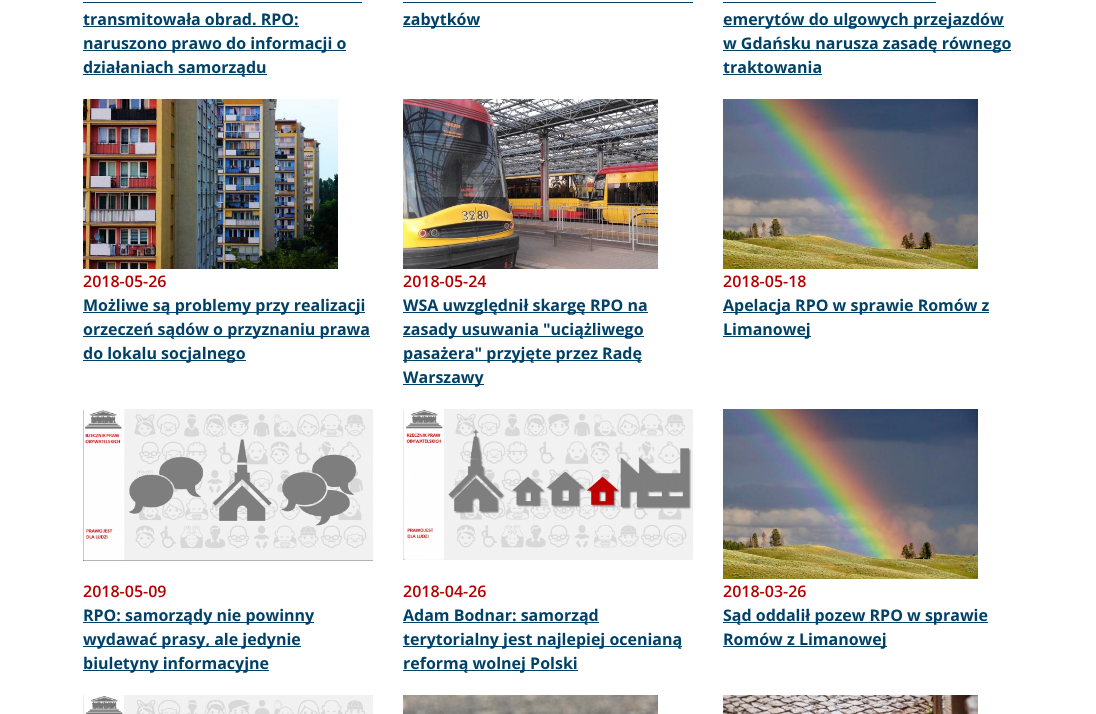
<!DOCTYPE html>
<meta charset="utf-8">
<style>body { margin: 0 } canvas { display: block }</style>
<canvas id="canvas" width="1096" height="714"></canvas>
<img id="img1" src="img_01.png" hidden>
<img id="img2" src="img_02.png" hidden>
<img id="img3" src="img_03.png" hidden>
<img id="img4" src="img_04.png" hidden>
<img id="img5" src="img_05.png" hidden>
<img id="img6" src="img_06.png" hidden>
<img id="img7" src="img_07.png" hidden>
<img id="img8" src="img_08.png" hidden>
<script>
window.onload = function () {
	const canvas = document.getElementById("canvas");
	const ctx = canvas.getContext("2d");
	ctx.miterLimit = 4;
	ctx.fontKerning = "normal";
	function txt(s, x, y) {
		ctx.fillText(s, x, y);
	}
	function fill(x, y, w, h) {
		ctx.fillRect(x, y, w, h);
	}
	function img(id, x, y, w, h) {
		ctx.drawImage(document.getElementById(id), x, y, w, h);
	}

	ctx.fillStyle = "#FFFFFF";
	fill(0, 0, 1096, 714);
	ctx.fillStyle = "#004167";
	fill(83, 2, 279, 1);
	fill(83, 26, 216, 1);
	fill(83, 50, 263, 1);
	fill(83, 74, 184, 1);
	fill(403, 2, 290, 1);
	fill(403, 26, 77, 1);
	fill(723, 2, 213, 1);
	fill(723, 26, 281, 1);
	fill(723, 50, 288, 1);
	fill(723, 74, 99, 1);
	img("img1", 83, 99, 255, 170);
	fill(83, 312, 282, 1);
	fill(83, 336, 287, 1);
	fill(83, 360, 163, 1);
	img("img2", 403, 99, 255, 170);
	fill(403, 312, 245, 1);
	fill(403, 336, 241, 1);
	fill(403, 360, 239, 1);
	fill(403, 384, 81, 1);
	img("img3", 723, 99, 255, 170);
	fill(723, 312, 266, 1);
	fill(723, 336, 88, 1);
	img("img4", 83, 409, 290, 152);
	fill(83, 622, 231, 1);
	fill(83, 646, 218, 1);
	fill(83, 670, 186, 1);
	img("img5", 403, 409, 290, 151);
	fill(403, 622, 196, 1);
	fill(403, 646, 279, 1);
	fill(403, 670, 175, 1);
	img("img3", 723, 409, 255, 170);
	fill(723, 622, 265, 1);
	fill(723, 646, 164, 1);
	img("img6", 83, 695, 290, 19);
	img("img7", 403, 695, 255, 19);
	img("img8", 723, 695, 255, 19);
	ctx.font = "bold 16px Open Sans";
	txt("transmitowała obrad. RPO:", 83, 25);
	txt("naruszono prawo do informacji o", 83, 49);
	txt("działaniach samorządu", 83, 73);
	txt("zabytków", 403, 25);
	txt("emerytów do ulgowych przejazdów", 723, 25);
	txt("w Gdańsku narusza zasadę równego", 723, 49);
	txt("traktowania", 723, 73);
	ctx.font = "600 16px Open Sans";
	ctx.fillStyle = "#B60000";
	txt("2018-05-26", 83, 287);
	ctx.font = "bold 16px Open Sans";
	ctx.fillStyle = "#004167";
	txt("Możliwe są problemy przy realizacji", 83, 311);
	txt("orzeczeń sądów o przyznaniu prawa", 83, 335);
	txt("do lokalu socjalnego", 83, 359);
	ctx.font = "600 16px Open Sans";
	ctx.fillStyle = "#B60000";
	txt("2018-05-24", 403, 287);
	ctx.font = "bold 16px Open Sans";
	ctx.fillStyle = "#004167";
	txt("WSA uwzględnił skargę RPO na", 403, 311);
	txt("zasady usuwania \"uciążliwego", 403, 335);
	txt("pasażera\" przyjęte przez Radę", 403, 359);
	txt("Warszawy", 403, 383);
	ctx.font = "600 16px Open Sans";
	ctx.fillStyle = "#B60000";
	txt("2018-05-18", 723, 287);
	ctx.font = "bold 16px Open Sans";
	ctx.fillStyle = "#004167";
	txt("Apelacja RPO w sprawie Romów z", 723, 311);
	txt("Limanowej", 723, 335);
	ctx.font = "600 16px Open Sans";
	ctx.fillStyle = "#B60000";
	txt("2018-05-09", 83, 597);
	ctx.font = "bold 16px Open Sans";
	ctx.fillStyle = "#004167";
	txt("RPO: samorządy nie powinny", 83, 621);
	txt("wydawać prasy, ale jedynie", 83, 645);
	txt("biuletyny informacyjne", 83, 669);
	ctx.font = "600 16px Open Sans";
	ctx.fillStyle = "#B60000";
	txt("2018-04-26", 403, 597);
	ctx.font = "bold 16px Open Sans";
	ctx.fillStyle = "#004167";
	txt("Adam Bodnar: samorząd", 403, 621);
	txt("terytorialny jest najlepiej ocenianą", 403, 645);
	txt("reformą wolnej Polski", 403, 669);
	ctx.font = "600 16px Open Sans";
	ctx.fillStyle = "#B60000";
	txt("2018-03-26", 723, 597);
	ctx.font = "bold 16px Open Sans";
	ctx.fillStyle = "#004167";
	txt("Sąd oddalił pozew RPO w sprawie", 723, 621);
	txt("Romów z Limanowej", 723, 645);
};
</script>
